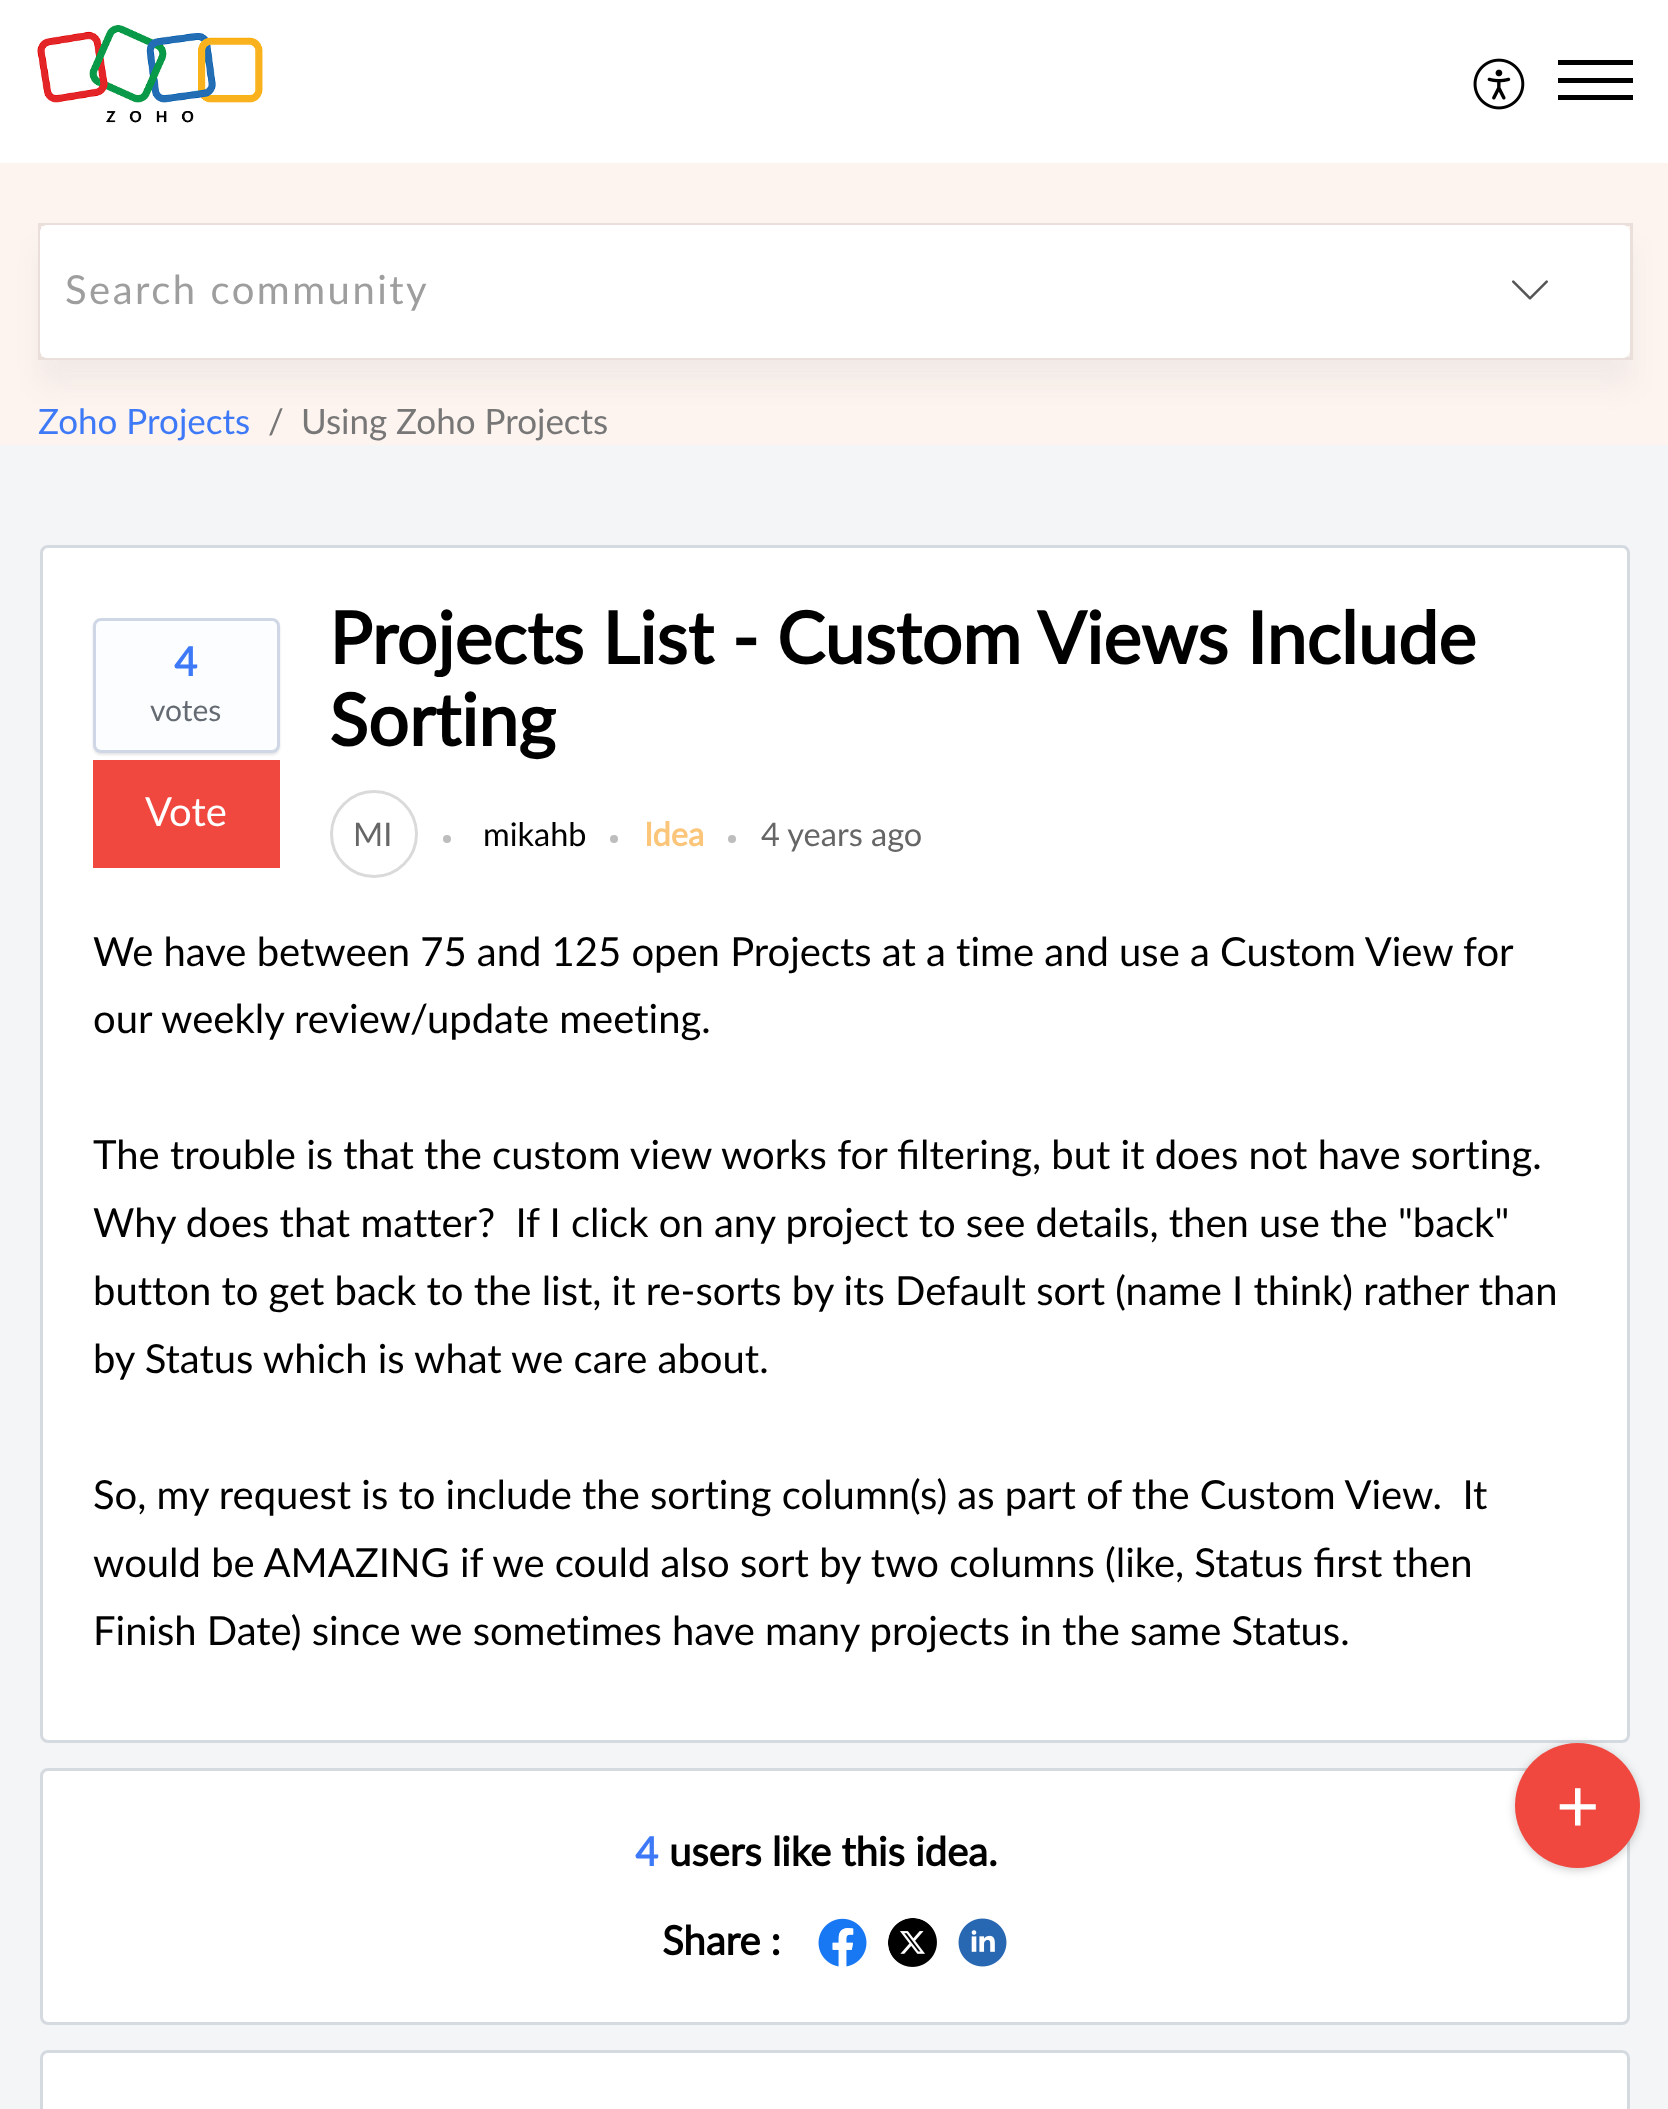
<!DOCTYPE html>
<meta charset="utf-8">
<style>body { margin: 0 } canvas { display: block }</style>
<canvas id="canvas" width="1668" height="2109"></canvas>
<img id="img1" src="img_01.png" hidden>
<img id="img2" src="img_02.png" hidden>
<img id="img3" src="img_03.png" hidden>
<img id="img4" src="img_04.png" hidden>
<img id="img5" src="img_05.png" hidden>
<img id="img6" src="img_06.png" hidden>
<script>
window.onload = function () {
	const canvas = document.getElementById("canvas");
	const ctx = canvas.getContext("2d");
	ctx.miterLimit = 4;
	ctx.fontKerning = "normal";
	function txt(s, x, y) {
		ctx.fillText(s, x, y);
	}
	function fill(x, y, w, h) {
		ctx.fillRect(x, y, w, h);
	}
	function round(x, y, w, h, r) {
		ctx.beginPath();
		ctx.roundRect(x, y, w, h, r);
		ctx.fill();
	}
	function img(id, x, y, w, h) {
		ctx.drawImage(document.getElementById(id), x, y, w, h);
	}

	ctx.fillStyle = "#F3F5F7";
	fill(0, 0, 1668, 2109);
	ctx.fillStyle = "#FFFFFF";
	fill(0, 0, 1668, 163);
	img("img1", 37, 25, 226, 98);
	img("img2", 1473, 58, 52, 52);
	ctx.fillStyle = "#000000";
	fill(1558, 78, 75, 5);
	fill(1558, 60, 75, 5);
	fill(1558, 95, 75, 5);
	ctx.fillStyle = "#FDF4EF";
	fill(0, 163, 1668, 282);
	ctx.fillStyle = "rgba(240, 232, 229, 0.84)";
	ctx.filter = "blur(12.5px)";
	ctx.beginPath();
	ctx.rect(38, 248, 1595, 137);
	ctx.fill();
	ctx.filter = "none";
	ctx.strokeStyle = "#EADFDB";
	ctx.lineWidth = 3;
	ctx.strokeRect(39.5, 224.5, 1592, 134);
	ctx.fillStyle = "#FFFFFF";
	round(40, 225, 1590, 133, 8);
	round(40, 225, 1390, 133, 8);
	ctx.fillStyle = "rgba(255, 255, 255, 0.5)";
	ctx.beginPath();
	ctx.roundRect(1430, 225, 200, 133, [0, 8, 8, 0]);
	ctx.fill();
	img("img3", 1512, 280, 36, 20);
	ctx.fillStyle = "#FFFFFF";
	ctx.beginPath();
	ctx.roundRect(41.5, 546.5, 1587, 1195, 6.5);
	ctx.fill();
	ctx.strokeStyle = "#D4DADF";
	ctx.stroke();
	ctx.beginPath();
	ctx.roundRect(41.5, 1769.5, 1587, 254, 6.5);
	ctx.fill();
	ctx.stroke();
	ctx.fillStyle = "rgba(0, 0, 0, 0.2)";
	ctx.filter = "blur(5px)";
	ctx.beginPath();
	ctx.roundRect(1515, 1745, 125, 125, 62.5);
	ctx.fill();
	ctx.filter = "none";
	ctx.fillStyle = "#F0483E";
	ctx.beginPath();
	ctx.arc(1577.5, 1805.5, 62.5, 0, Math.PI * 2);
	ctx.fill();
	ctx.fillStyle = "rgba(0, 0, 0, 0.1)";
	ctx.filter = "blur(1px)";
	ctx.beginPath();
	ctx.roundRect(93, 620, 187, 135, 8);
	ctx.fill();
	ctx.filter = "none";
	ctx.fillStyle = "#FCFDFF";
	ctx.beginPath();
	ctx.roundRect(94.5, 619.5, 184, 132, 6.5);
	ctx.fill();
	ctx.strokeStyle = "#CFD7E6";
	ctx.stroke();
	ctx.fillStyle = "#F0483E";
	fill(93, 760, 187, 108);
	ctx.beginPath();
	ctx.arc(374, 834, 42.5, 0, Math.PI * 2);
	ctx.strokeStyle = "#DADADA";
	ctx.stroke();
	ctx.fillStyle = "#BDBDBD";
	ctx.beginPath();
	ctx.arc(447, 839, 4, 0, Math.PI * 2);
	ctx.fill();
	ctx.beginPath();
	ctx.arc(614, 839, 4, 0, Math.PI * 2);
	ctx.fill();
	ctx.beginPath();
	ctx.arc(732, 839, 4, 0, Math.PI * 2);
	ctx.fill();
	img("img4", 818, 1918, 49, 49);
	img("img5", 888, 1918, 49, 49);
	img("img6", 958, 1918, 49, 49);
	ctx.fillStyle = "#FFFFFF";
	ctx.beginPath();
	ctx.moveTo(48, 2050);
	ctx.lineTo(1622, 2050);
	ctx.bezierCurveTo(1626.5, 2050, 1630, 2053.5, 1630, 2058);
	ctx.lineTo(1630, 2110);
	ctx.lineTo(40, 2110);
	ctx.lineTo(40, 2058);
	ctx.bezierCurveTo(40, 2053.5, 43.5, 2050, 48, 2050);
	ctx.closePath();
	ctx.fill();
	ctx.beginPath();
	ctx.roundRect(41.5, 2051.5, 1587, 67, 6.5);
	ctx.strokeStyle = "#D4DADF";
	ctx.stroke();
	ctx.letterSpacing = "2.5px";
	ctx.font = "40px Lato";
	ctx.fillStyle = "#9E9E9E";
	txt("Search community", 65, 304);
	ctx.letterSpacing = "0px";
	ctx.font = "75px Lato";
	ctx.fillStyle = "#FFFFFF";
	txt("+", 1556, 1832);
	ctx.font = "35px Lato";
	ctx.fillStyle = "#3E7AF7";
	txt("Zoho Projects", 38, 434);
	ctx.fillStyle = "#777777";
	txt("/", 268, 434);
	txt("Using Zoho Projects", 301, 434);
	ctx.font = "bold 40px Lato";
	ctx.fillStyle = "#3E7AF7";
	txt("4", 174, 676);
	ctx.font = "30px Lato";
	ctx.fillStyle = "#646B72";
	txt("votes", 150, 721);
	ctx.font = "40px Lato";
	ctx.fillStyle = "#FFFFFF";
	txt("Vote", 145, 826);
	ctx.font = "bold 72px Lato";
	ctx.fillStyle = "#000000";
	txt("Projects List - Custom Views Include", 329, 664);
	txt("Sorting", 329, 746);
	ctx.font = "32.5px Lato";
	ctx.fillStyle = "#666666";
	txt("MI", 353, 846);
	ctx.fillStyle = "#000000";
	txt("mikahb", 483, 846);
	ctx.font = "bold 32.5px Lato";
	ctx.fillStyle = "#FBC67A";
	txt("Idea", 644, 846);
	ctx.font = "32.5px Lato";
	ctx.fillStyle = "#666666";
	txt("4 years ago", 761, 846);
	ctx.font = "40px Lato";
	ctx.fillStyle = "#000000";
	txt("We have between 75 and 125 open Projects at a time and use a Custom View for", 93, 966);
	txt("our weekly review/update meeting.", 93, 1033);
	txt("The trouble is that the custom view works for filtering, but it does not have sorting.", 93, 1169);
	txt("Why does that matter?  If I click on any project to see details, then use the \"back\"", 93, 1237);
	txt("button to get back to the list, it re-sorts by its Default sort (name I think) rather than", 93, 1305);
	txt("by Status which is what we care about.", 93, 1373);
	txt("So, my request is to include the sorting column(s) as part of the Custom View.  It", 93, 1509);
	txt("would be AMAZING if we could also sort by two columns (like, Status first then", 93, 1577);
	txt("Finish Date) since we sometimes have many projects in the same Status.", 93, 1645);
	ctx.font = "bold 40px Lato";
	ctx.fillStyle = "#3E7AF7";
	txt("4", 635, 1866);
	ctx.fillStyle = "#000000";
	txt("users like this idea.", 669, 1866);
	txt("Share :", 662, 1955);
};
</script>
